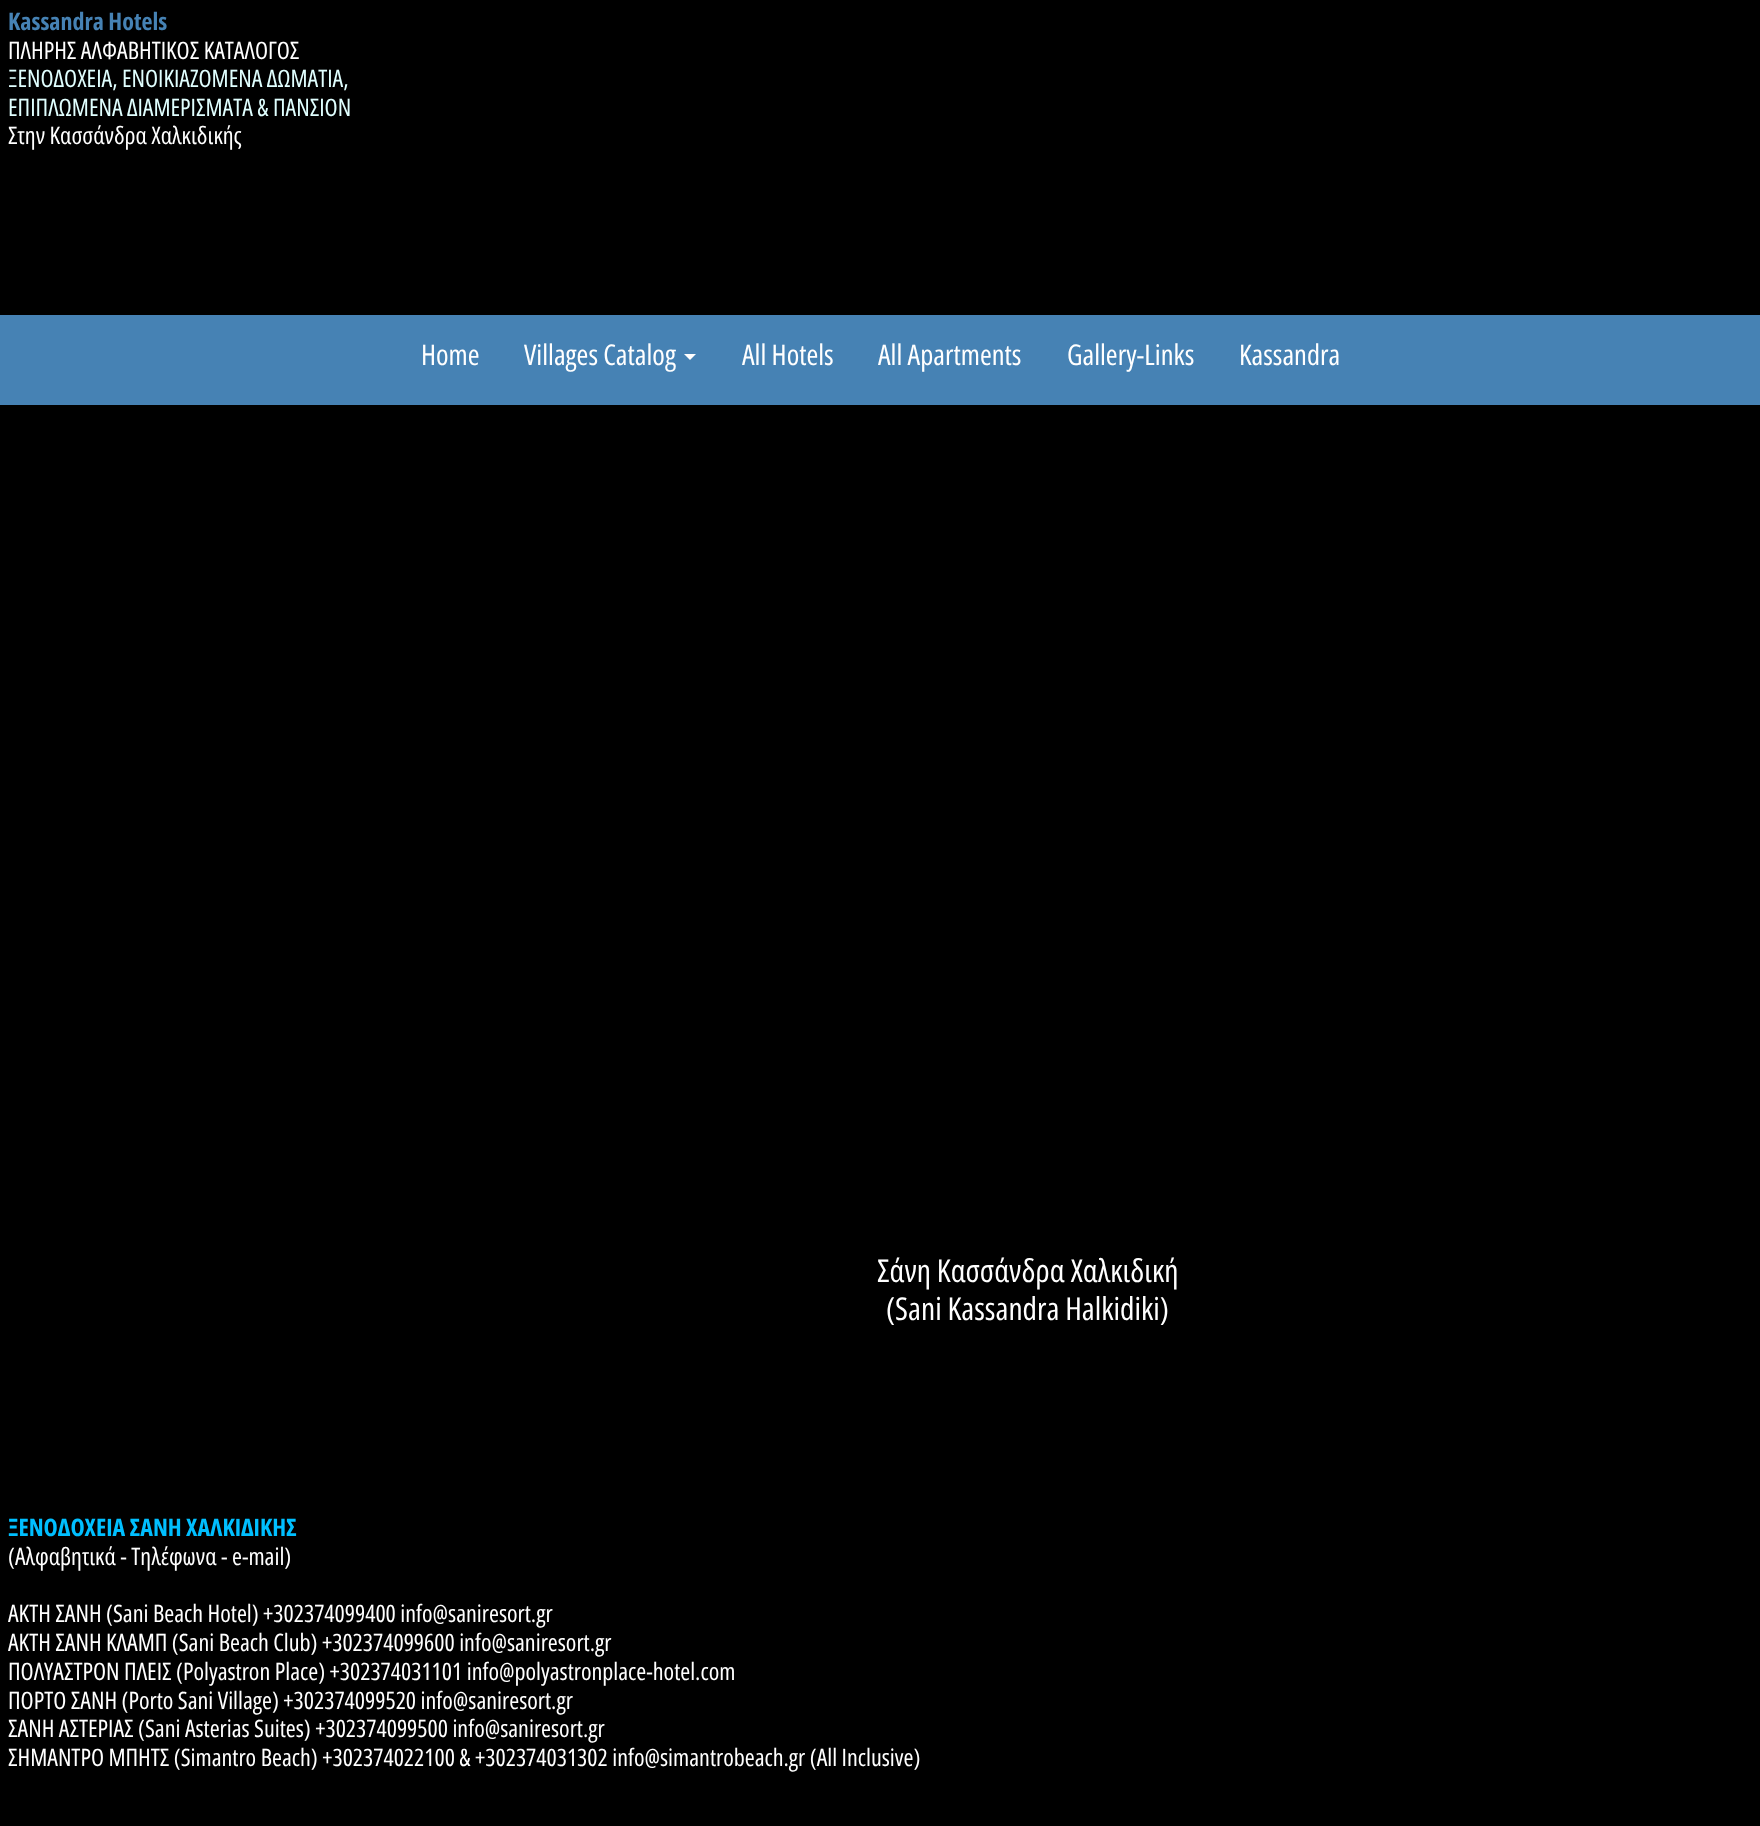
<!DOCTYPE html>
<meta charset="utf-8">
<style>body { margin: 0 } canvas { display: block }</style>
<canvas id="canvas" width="1760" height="1826"></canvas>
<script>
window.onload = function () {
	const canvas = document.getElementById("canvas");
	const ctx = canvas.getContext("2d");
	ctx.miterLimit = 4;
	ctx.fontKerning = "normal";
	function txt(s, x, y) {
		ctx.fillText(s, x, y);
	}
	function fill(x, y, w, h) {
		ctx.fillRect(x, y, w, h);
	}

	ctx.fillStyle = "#000000";
	fill(0, 0, 1760, 1826);
	ctx.fillStyle = "#4682B4";
	fill(0, 315, 1760, 90);
	ctx.fillStyle = "#FFFFFF";
	ctx.beginPath();
	ctx.moveTo(684, 354);
	ctx.lineTo(696, 354);
	ctx.lineTo(690, 360);
	ctx.closePath();
	ctx.fill();
	ctx.font = "bold 24px Open Sans";
	ctx.fillStyle = "#4682B4";
	txt("Kassandra Hotels", 8, 30);
	ctx.font = "24px Open Sans";
	ctx.fillStyle = "#FFFFFF";
	txt("ΠΛΗΡΗΣ ΑΛΦΑΒΗΤΙΚΟΣ ΚΑΤΑΛΟΓΟΣ", 8, 59);
	ctx.fillStyle = "#E0FFFF";
	txt("ΞΕΝΟΔΟΧΕΙΑ, ΕΝΟΙΚΙΑΖΟΜΕΝΑ ΔΩΜΑΤΙΑ,", 8, 87);
	txt("ΕΠΙΠΛΩΜΕΝΑ ΔΙΑΜΕΡΙΣΜΑΤΑ & ΠΑΝΣΙΟΝ", 8, 116);
	ctx.fillStyle = "#FFFFFF";
	txt("Στην Κασσάνδρα Χαλκιδικής", 8, 144);
	ctx.font = "28.5px Open Sans";
	txt("Home", 421, 365);
	txt("Villages Catalog", 524, 365);
	txt("All Hotels", 742, 365);
	txt("All Apartments", 878, 365);
	txt("Gallery-Links", 1067, 365);
	txt("Kassandra", 1239, 365);
	ctx.font = "31.5px Open Sans";
	txt("Σάνη Κασσάνδρα Χαλκιδική", 877, 1282);
	txt("(Sani Kassandra Halkidiki)", 886, 1320);
	ctx.font = "bold 24px Open Sans";
	ctx.fillStyle = "#00BFFF";
	txt("ΞΕΝΟΔΟΧΕΙΑ ΣΑΝΗ ΧΑΛΚΙΔΙΚΗΣ", 8, 1536);
	ctx.font = "24px Open Sans";
	ctx.fillStyle = "#FFFFFF";
	txt("(Αλφαβητικά - Τηλέφωνα - e-mail)", 8, 1565);
	txt("ΑΚΤΗ ΣΑΝΗ (Sani Beach Hotel) +302374099400 info@saniresort.gr", 8, 1622);
	txt("ΑΚΤΗ ΣΑΝΗ ΚΛΑΜΠ (Sani Beach Club) +302374099600 info@saniresort.gr", 8, 1651);
	txt("ΠΟΛΥΑΣΤΡΟΝ ΠΛΕΙΣ (Polyastron Place) +302374031101 info@polyastronplace-hotel.com", 8, 1680);
	txt("ΠΟΡΤΟ ΣΑΝΗ (Porto Sani Village) +302374099520 info@saniresort.gr", 8, 1709);
	txt("ΣΑΝΗ ΑΣΤΕΡΙΑΣ (Sani Asterias Suites) +302374099500 info@saniresort.gr", 8, 1737);
	txt("ΣΗΜΑΝΤΡΟ ΜΠΗΤΣ (Simantro Beach) +302374022100 & +302374031302 info@simantrobeach.gr (All Inclusive)", 8, 1766);
};
</script>
